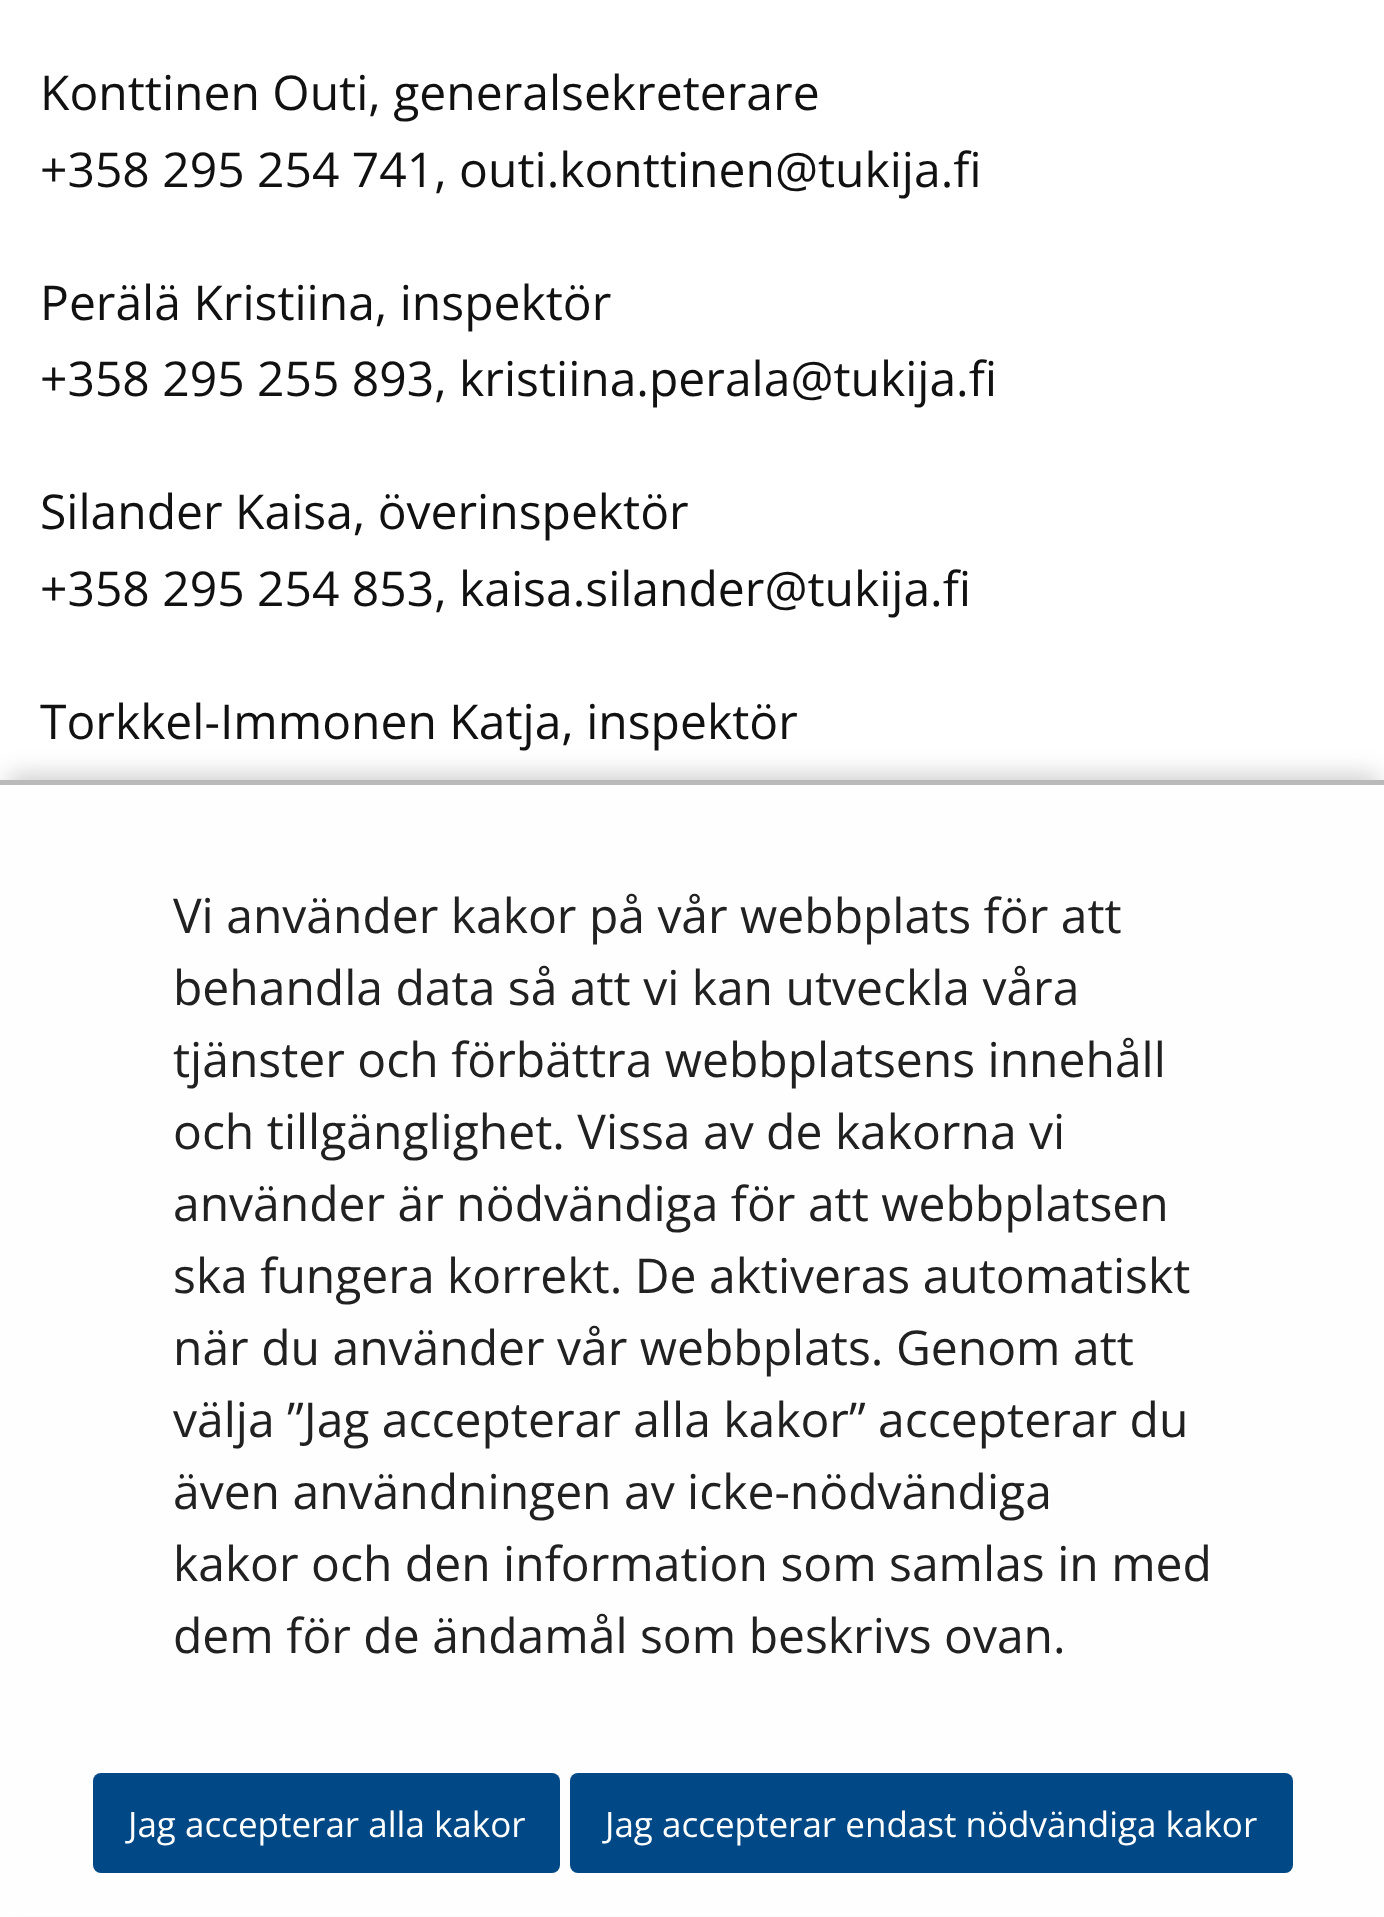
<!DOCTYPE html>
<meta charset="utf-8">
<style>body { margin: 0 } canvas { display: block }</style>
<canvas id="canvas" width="1384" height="1917"></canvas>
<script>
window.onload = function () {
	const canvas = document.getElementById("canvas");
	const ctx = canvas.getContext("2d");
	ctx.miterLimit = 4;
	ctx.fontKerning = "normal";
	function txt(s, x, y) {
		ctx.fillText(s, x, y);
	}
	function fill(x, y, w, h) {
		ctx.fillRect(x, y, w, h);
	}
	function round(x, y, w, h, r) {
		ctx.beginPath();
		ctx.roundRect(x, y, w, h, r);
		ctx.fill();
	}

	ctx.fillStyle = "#FFFFFF";
	fill(0, 0, 1384, 1917);
	ctx.fillStyle = "rgba(0, 0, 0, 0.2)";
	ctx.filter = "blur(12.5px)";
	ctx.beginPath();
	ctx.rect(8, 775, 1370, 1123);
	ctx.fill();
	ctx.filter = "none";
	ctx.fillStyle = "#FEFEFE";
	fill(0, 785, 1384, 1131);
	ctx.fillStyle = "#BABABA";
	fill(0, 780, 1384, 5);
	ctx.fillStyle = "#004986";
	round(93, 1773, 467, 100, 8);
	round(570, 1773, 723, 100, 8);
	ctx.font = "48px Open Sans";
	ctx.fillStyle = "#111111";
	txt("Konttinen Outi, generalsekreterare", 40, 110);
	txt("+358 295 254 741, outi.konttinen@tukija.fi", 40, 187);
	txt("Perälä Kristiina, inspektör", 40, 320);
	txt("+358 295 255 893, kristiina.perala@tukija.fi", 40, 396);
	txt("Silander Kaisa, överinspektör", 40, 529);
	txt("+358 295 254 853, kaisa.silander@tukija.fi", 40, 606);
	txt("Torkkel-Immonen Katja, inspektör", 40, 739);
	ctx.fillStyle = "#212121";
	txt("Vi använder kakor på vår webbplats för att", 173, 933);
	txt("behandla data så att vi kan utveckla våra", 173, 1005);
	txt("tjänster och förbättra webbplatsens innehåll", 173, 1077);
	txt("och tillgänglighet. Vissa av de kakorna vi", 173, 1149);
	txt("använder är nödvändiga för att webbplatsen", 173, 1221);
	txt("ska fungera korrekt. De aktiveras automatiskt", 173, 1293);
	txt("när du använder vår webbplats. Genom att", 173, 1365);
	txt("välja ”Jag accepterar alla kakor” accepterar du", 173, 1437);
	txt("även användningen av icke-nödvändiga", 173, 1509);
	txt("kakor och den information som samlas in med", 173, 1581);
	txt("dem för de ändamål som beskrivs ovan.", 173, 1653);
	ctx.font = "35px Open Sans";
	ctx.fillStyle = "#FFFFFF";
	txt("Jag accepterar alla kakor", 128, 1837);
	txt("Jag accepterar endast nödvändiga kakor", 605, 1837);
};
</script>
